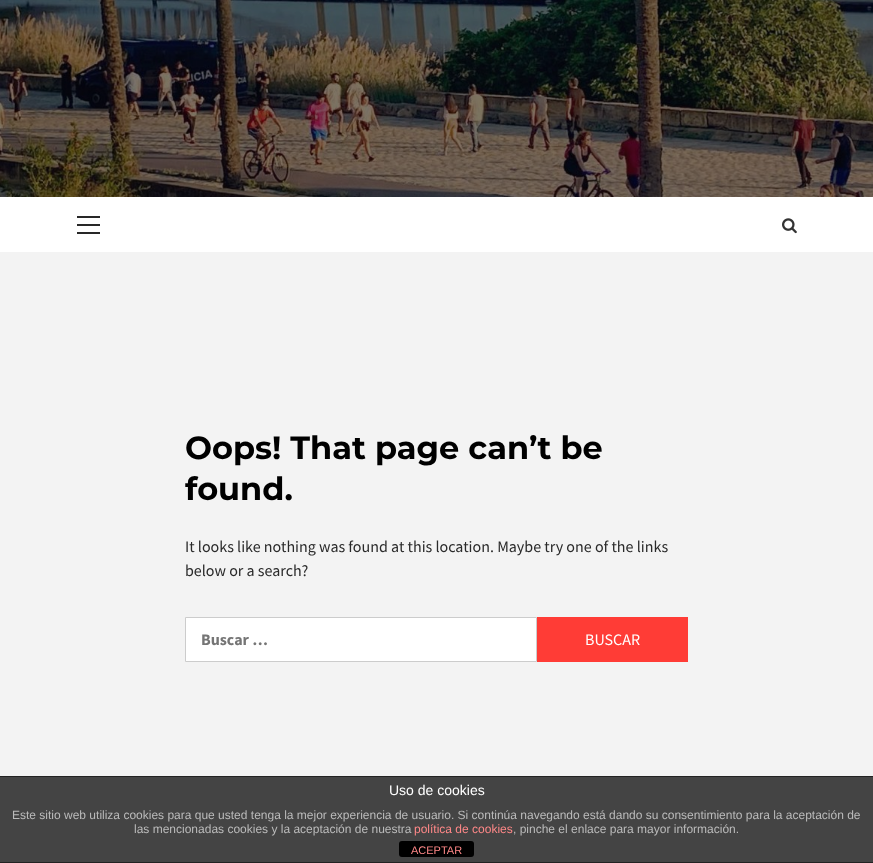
<!DOCTYPE html>
<meta charset="utf-8">
<style>body { margin: 0 } canvas { display: block }</style>
<canvas id="canvas" width="873" height="863"></canvas>
<img id="img1" src="img_01.png" hidden>
<img id="img2" src="img_02.png" hidden>
<script>
window.onload = function () {
	const canvas = document.getElementById("canvas");
	const ctx = canvas.getContext("2d");
	ctx.miterLimit = 4;
	ctx.fontKerning = "normal";
	function txt(s, x, y) {
		ctx.fillText(s, x, y);
	}
	function fill(x, y, w, h) {
		ctx.fillRect(x, y, w, h);
	}
	function round(x, y, w, h, r) {
		ctx.beginPath();
		ctx.roundRect(x, y, w, h, r);
		ctx.fill();
	}
	function img(id, x, y, w, h) {
		ctx.drawImage(document.getElementById(id), x, y, w, h);
	}

	ctx.fillStyle = "#F3F3F3";
	fill(0, 0, 873, 863);
	img("img1", 0, 0, 873, 197);
	ctx.fillStyle = "#FFFFFF";
	fill(0, 197, 873, 55);
	ctx.fillStyle = "#282828";
	fill(77, 224, 23, 2);
	fill(77, 216, 23, 2);
	fill(77, 232, 23, 2);
	img("img2", 782, 218, 15, 16);
	ctx.fillStyle = "#FFFFFF";
	ctx.beginPath();
	ctx.rect(185.5, 617.5, 351, 44);
	ctx.fill();
	ctx.strokeStyle = "#CCCCCC";
	ctx.stroke();
	ctx.fillStyle = "#FF3C36";
	fill(537, 617, 151, 45);
	ctx.fillStyle = "#444444";
	fill(0, 777, 873, 85);
	ctx.fillStyle = "#222222";
	fill(0, 776, 873, 1);
	fill(0, 862, 873, 1);
	ctx.fillStyle = "#000000";
	round(399, 841, 75, 16, 3);
	ctx.font = "bold 32px Montserrat";
	txt("Oops! That page can’t be", 185, 459);
	txt("found.", 185, 500);
	ctx.font = "16px Source Sans Pro";
	ctx.fillStyle = "#2A2A2A";
	txt("It looks like nothing was found at this location. Maybe try one of the links", 185, 552);
	txt("below or a search?", 185, 576);
	ctx.font = "bold 16px Source Sans Pro";
	ctx.fillStyle = "#757575";
	txt("Buscar …", 201, 645);
	ctx.font = "16px Source Sans Pro";
	ctx.fillStyle = "#FFFFFF";
	txt("BUSCAR", 585, 645);
	ctx.font = "14px Liberation Sans";
	txt("Uso de cookies", 389, 795);
	ctx.font = "12px Liberation Sans";
	ctx.fillStyle = "#BBBBBB";
	txt("Este sitio web utiliza cookies para que usted tenga la mejor experiencia de usuario. Si continúa navegando está dando su consentimiento para la aceptación de", 12, 819);
	txt("las mencionadas cookies y la aceptación de nuestra", 134, 833);
	ctx.fillStyle = "#FF8888";
	txt("política de cookies", 414, 833);
	ctx.fillStyle = "#BBBBBB";
	txt(", pinche el enlace para mayor información.", 513, 833);
	ctx.font = "11px Liberation Sans";
	ctx.fillStyle = "#FF8888";
	txt("ACEPTAR", 411, 854);
};
</script>
